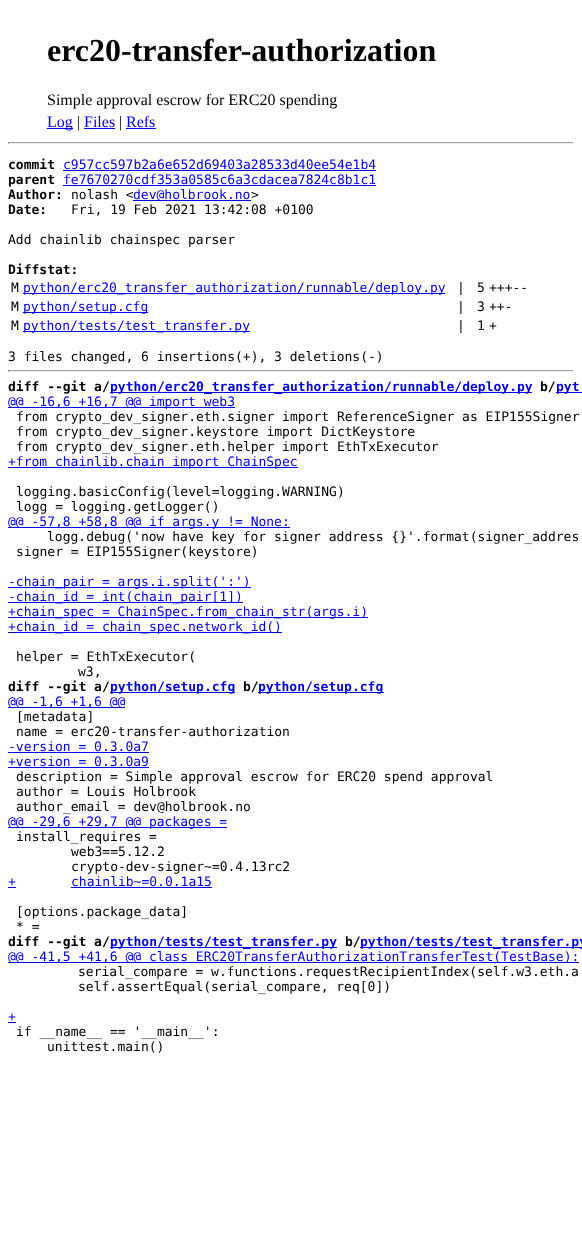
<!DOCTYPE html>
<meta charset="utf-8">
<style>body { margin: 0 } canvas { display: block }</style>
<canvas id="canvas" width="582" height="1252"></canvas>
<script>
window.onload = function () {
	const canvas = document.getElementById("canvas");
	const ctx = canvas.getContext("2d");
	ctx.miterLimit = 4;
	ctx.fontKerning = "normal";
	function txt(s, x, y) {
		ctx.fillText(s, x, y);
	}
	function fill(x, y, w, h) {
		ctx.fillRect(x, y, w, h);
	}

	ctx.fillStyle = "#FFFFFF";
	fill(0, 0, 582, 1252);
	ctx.fillStyle = "#0000EE";
	fill(47, 128, 26, 1);
	fill(84, 128, 31, 1);
	fill(126, 128, 30, 1);
	ctx.fillStyle = "#9F9F9F";
	fill(8, 142, 566, 1);
	ctx.fillStyle = "#EEEEEE";
	fill(573, 142, 1, 2);
	fill(8, 143, 566, 1);
	ctx.fillStyle = "#9F9F9F";
	fill(8, 142, 1, 2);
	ctx.fillStyle = "#0000EE";
	fill(63, 170, 313, 1);
	fill(63, 185, 313, 1);
	fill(133, 200, 118, 1);
	fill(23, 293, 422, 1);
	fill(23, 312, 125, 1);
	fill(23, 331, 227, 1);
	ctx.fillStyle = "#9F9F9F";
	fill(8, 370, 566, 1);
	ctx.fillStyle = "#EEEEEE";
	fill(573, 370, 1, 2);
	fill(8, 371, 566, 1);
	ctx.fillStyle = "#9F9F9F";
	fill(8, 370, 1, 2);
	ctx.fillStyle = "#0000EE";
	fill(110, 392, 422, 1);
	fill(556, 392, 26, 1);
	fill(8, 407, 227, 1);
	fill(8, 467, 290, 1);
	fill(8, 527, 282, 1);
	fill(8, 587, 243, 1);
	fill(8, 602, 235, 1);
	fill(8, 617, 360, 1);
	fill(8, 632, 274, 1);
	fill(110, 692, 125, 1);
	fill(258, 692, 126, 1);
	fill(8, 707, 117, 1);
	fill(8, 752, 141, 1);
	fill(8, 767, 141, 1);
	fill(8, 827, 219, 1);
	fill(8, 887, 8, 1);
	fill(71, 887, 141, 1);
	fill(110, 947, 227, 1);
	fill(360, 947, 222, 1);
	fill(8, 962, 571, 1);
	fill(8, 1022, 8, 1);
	ctx.font = "bold 32px Liberation Serif";
	ctx.fillStyle = "#000000";
	txt("erc20-transfer-authorization", 47, 61);
	ctx.font = "16px Liberation Serif";
	txt("Simple approval escrow for ERC20 spending", 47, 105);
	ctx.fillStyle = "#0000EE";
	txt("Log", 47, 127);
	ctx.fillStyle = "#000000";
	txt("|", 77, 127);
	ctx.fillStyle = "#0000EE";
	txt("Files", 84, 127);
	ctx.fillStyle = "#000000";
	txt("|", 119, 127);
	ctx.fillStyle = "#0000EE";
	txt("Refs", 126, 127);
	ctx.font = "bold 13px DejaVu Sans Mono";
	ctx.fillStyle = "#000000";
	txt("commit", 8, 169);
	ctx.font = "13px DejaVu Sans Mono";
	ctx.fillStyle = "#0000EE";
	txt("c957cc597b2a6e652d69403a28533d40ee54e1b4", 63, 169);
	ctx.font = "bold 13px DejaVu Sans Mono";
	ctx.fillStyle = "#000000";
	txt("parent", 8, 184);
	ctx.font = "13px DejaVu Sans Mono";
	ctx.fillStyle = "#0000EE";
	txt("fe7670270cdf353a0585c6a3cdacea7824c8b1c1", 63, 184);
	ctx.font = "bold 13px DejaVu Sans Mono";
	ctx.fillStyle = "#000000";
	txt("Author:", 8, 199);
	ctx.font = "13px DejaVu Sans Mono";
	txt("nolash <", 71, 199);
	ctx.fillStyle = "#0000EE";
	txt("dev@holbrook.no", 133, 199);
	ctx.fillStyle = "#000000";
	txt(">", 251, 199);
	ctx.font = "bold 13px DejaVu Sans Mono";
	txt("Date:", 8, 214);
	ctx.font = "13px DejaVu Sans Mono";
	txt("Fri, 19 Feb 2021 13:42:08 +0100", 71, 214);
	txt("Add chainlib chainspec parser", 8, 244);
	ctx.font = "bold 13px DejaVu Sans Mono";
	txt("Diffstat:", 8, 274);
	ctx.font = "13px DejaVu Sans Mono";
	txt("M", 11, 292);
	ctx.fillStyle = "#0000EE";
	txt("python/erc20_transfer_authorization/runnable/deploy.py", 23, 292);
	ctx.fillStyle = "#000000";
	txt("|", 457, 292);
	txt("5", 477, 292);
	txt("+++--", 489, 292);
	txt("M", 11, 311);
	ctx.fillStyle = "#0000EE";
	txt("python/setup.cfg", 23, 311);
	ctx.fillStyle = "#000000";
	txt("|", 457, 311);
	txt("3", 477, 311);
	txt("++-", 489, 311);
	txt("M", 11, 330);
	ctx.fillStyle = "#0000EE";
	txt("python/tests/test_transfer.py", 23, 330);
	ctx.fillStyle = "#000000";
	txt("|", 457, 330);
	txt("1", 477, 330);
	txt("+", 489, 330);
	txt("3 files changed, 6 insertions(+), 3 deletions(-)", 8, 361);
	ctx.font = "bold 13px DejaVu Sans Mono";
	txt("diff --git a/", 8, 391);
	ctx.fillStyle = "#0000EE";
	txt("python/erc20_transfer_authorization/runnable/deploy.py", 110, 391);
	ctx.fillStyle = "#000000";
	txt("b/", 540, 391);
	ctx.fillStyle = "#0000EE";
	txt("pyt", 556, 391);
	ctx.font = "13px DejaVu Sans Mono";
	txt("@@ -16,6 +16,7 @@ import web3", 8, 406);
	ctx.fillStyle = "#000000";
	txt("from crypto_dev_signer.eth.signer import ReferenceSigner as EIP155Signer", 16, 421);
	txt("from crypto_dev_signer.keystore import DictKeystore", 16, 436);
	txt("from crypto_dev_signer.eth.helper import EthTxExecutor", 16, 451);
	ctx.fillStyle = "#0000EE";
	txt("+from chainlib.chain import ChainSpec", 8, 466);
	ctx.fillStyle = "#000000";
	txt("logging.basicConfig(level=logging.WARNING)", 16, 496);
	txt("logg = logging.getLogger()", 16, 511);
	ctx.fillStyle = "#0000EE";
	txt("@@ -57,8 +58,8 @@ if args.y != None:", 8, 526);
	ctx.fillStyle = "#000000";
	txt("logg.debug('now have key for signer address {}'.format(signer_addres", 47, 541);
	txt("signer = EIP155Signer(keystore)", 16, 556);
	ctx.fillStyle = "#0000EE";
	txt("-chain_pair = args.i.split(':')", 8, 586);
	txt("-chain_id = int(chain_pair[1])", 8, 601);
	txt("+chain_spec = ChainSpec.from_chain_str(args.i)", 8, 616);
	txt("+chain_id = chain_spec.network_id()", 8, 631);
	ctx.fillStyle = "#000000";
	txt("helper = EthTxExecutor(", 16, 661);
	txt("w3,", 78, 676);
	ctx.font = "bold 13px DejaVu Sans Mono";
	txt("diff --git a/", 8, 691);
	ctx.fillStyle = "#0000EE";
	txt("python/setup.cfg", 110, 691);
	ctx.fillStyle = "#000000";
	txt("b/", 243, 691);
	ctx.fillStyle = "#0000EE";
	txt("python/setup.cfg", 258, 691);
	ctx.font = "13px DejaVu Sans Mono";
	txt("@@ -1,6 +1,6 @@", 8, 706);
	ctx.fillStyle = "#000000";
	txt("[metadata]", 16, 721);
	txt("name = erc20-transfer-authorization", 16, 736);
	ctx.fillStyle = "#0000EE";
	txt("-version = 0.3.0a7", 8, 751);
	txt("+version = 0.3.0a9", 8, 766);
	ctx.fillStyle = "#000000";
	txt("description = Simple approval escrow for ERC20 spend approval", 16, 781);
	txt("author = Louis Holbrook", 16, 796);
	txt("author_email = dev@holbrook.no", 16, 811);
	ctx.fillStyle = "#0000EE";
	txt("@@ -29,6 +29,7 @@ packages =", 8, 826);
	ctx.fillStyle = "#000000";
	txt("install_requires =", 16, 841);
	txt("web3==5.12.2", 71, 856);
	txt("crypto-dev-signer~=0.4.13rc2", 71, 871);
	ctx.fillStyle = "#0000EE";
	txt("+", 8, 886);
	txt("chainlib~=0.0.1a15", 71, 886);
	ctx.fillStyle = "#000000";
	txt("[options.package_data]", 16, 916);
	txt("* =", 16, 931);
	ctx.font = "bold 13px DejaVu Sans Mono";
	txt("diff --git a/", 8, 946);
	ctx.fillStyle = "#0000EE";
	txt("python/tests/test_transfer.py", 110, 946);
	ctx.fillStyle = "#000000";
	txt("b/", 345, 946);
	ctx.fillStyle = "#0000EE";
	txt("python/tests/test_transfer.py", 360, 946);
	ctx.font = "13px DejaVu Sans Mono";
	txt("@@ -41,5 +41,6 @@ class ERC20TransferAuthorizationTransferTest(TestBase):", 8, 961);
	ctx.fillStyle = "#000000";
	txt("serial_compare = w.functions.requestRecipientIndex(self.w3.eth.a", 78, 976);
	txt("self.assertEqual(serial_compare, req[0])", 78, 991);
	ctx.fillStyle = "#0000EE";
	txt("+", 8, 1021);
	ctx.fillStyle = "#000000";
	txt("if __name__ == '__main__':", 16, 1036);
	txt("unittest.main()", 47, 1051);
};
</script>
